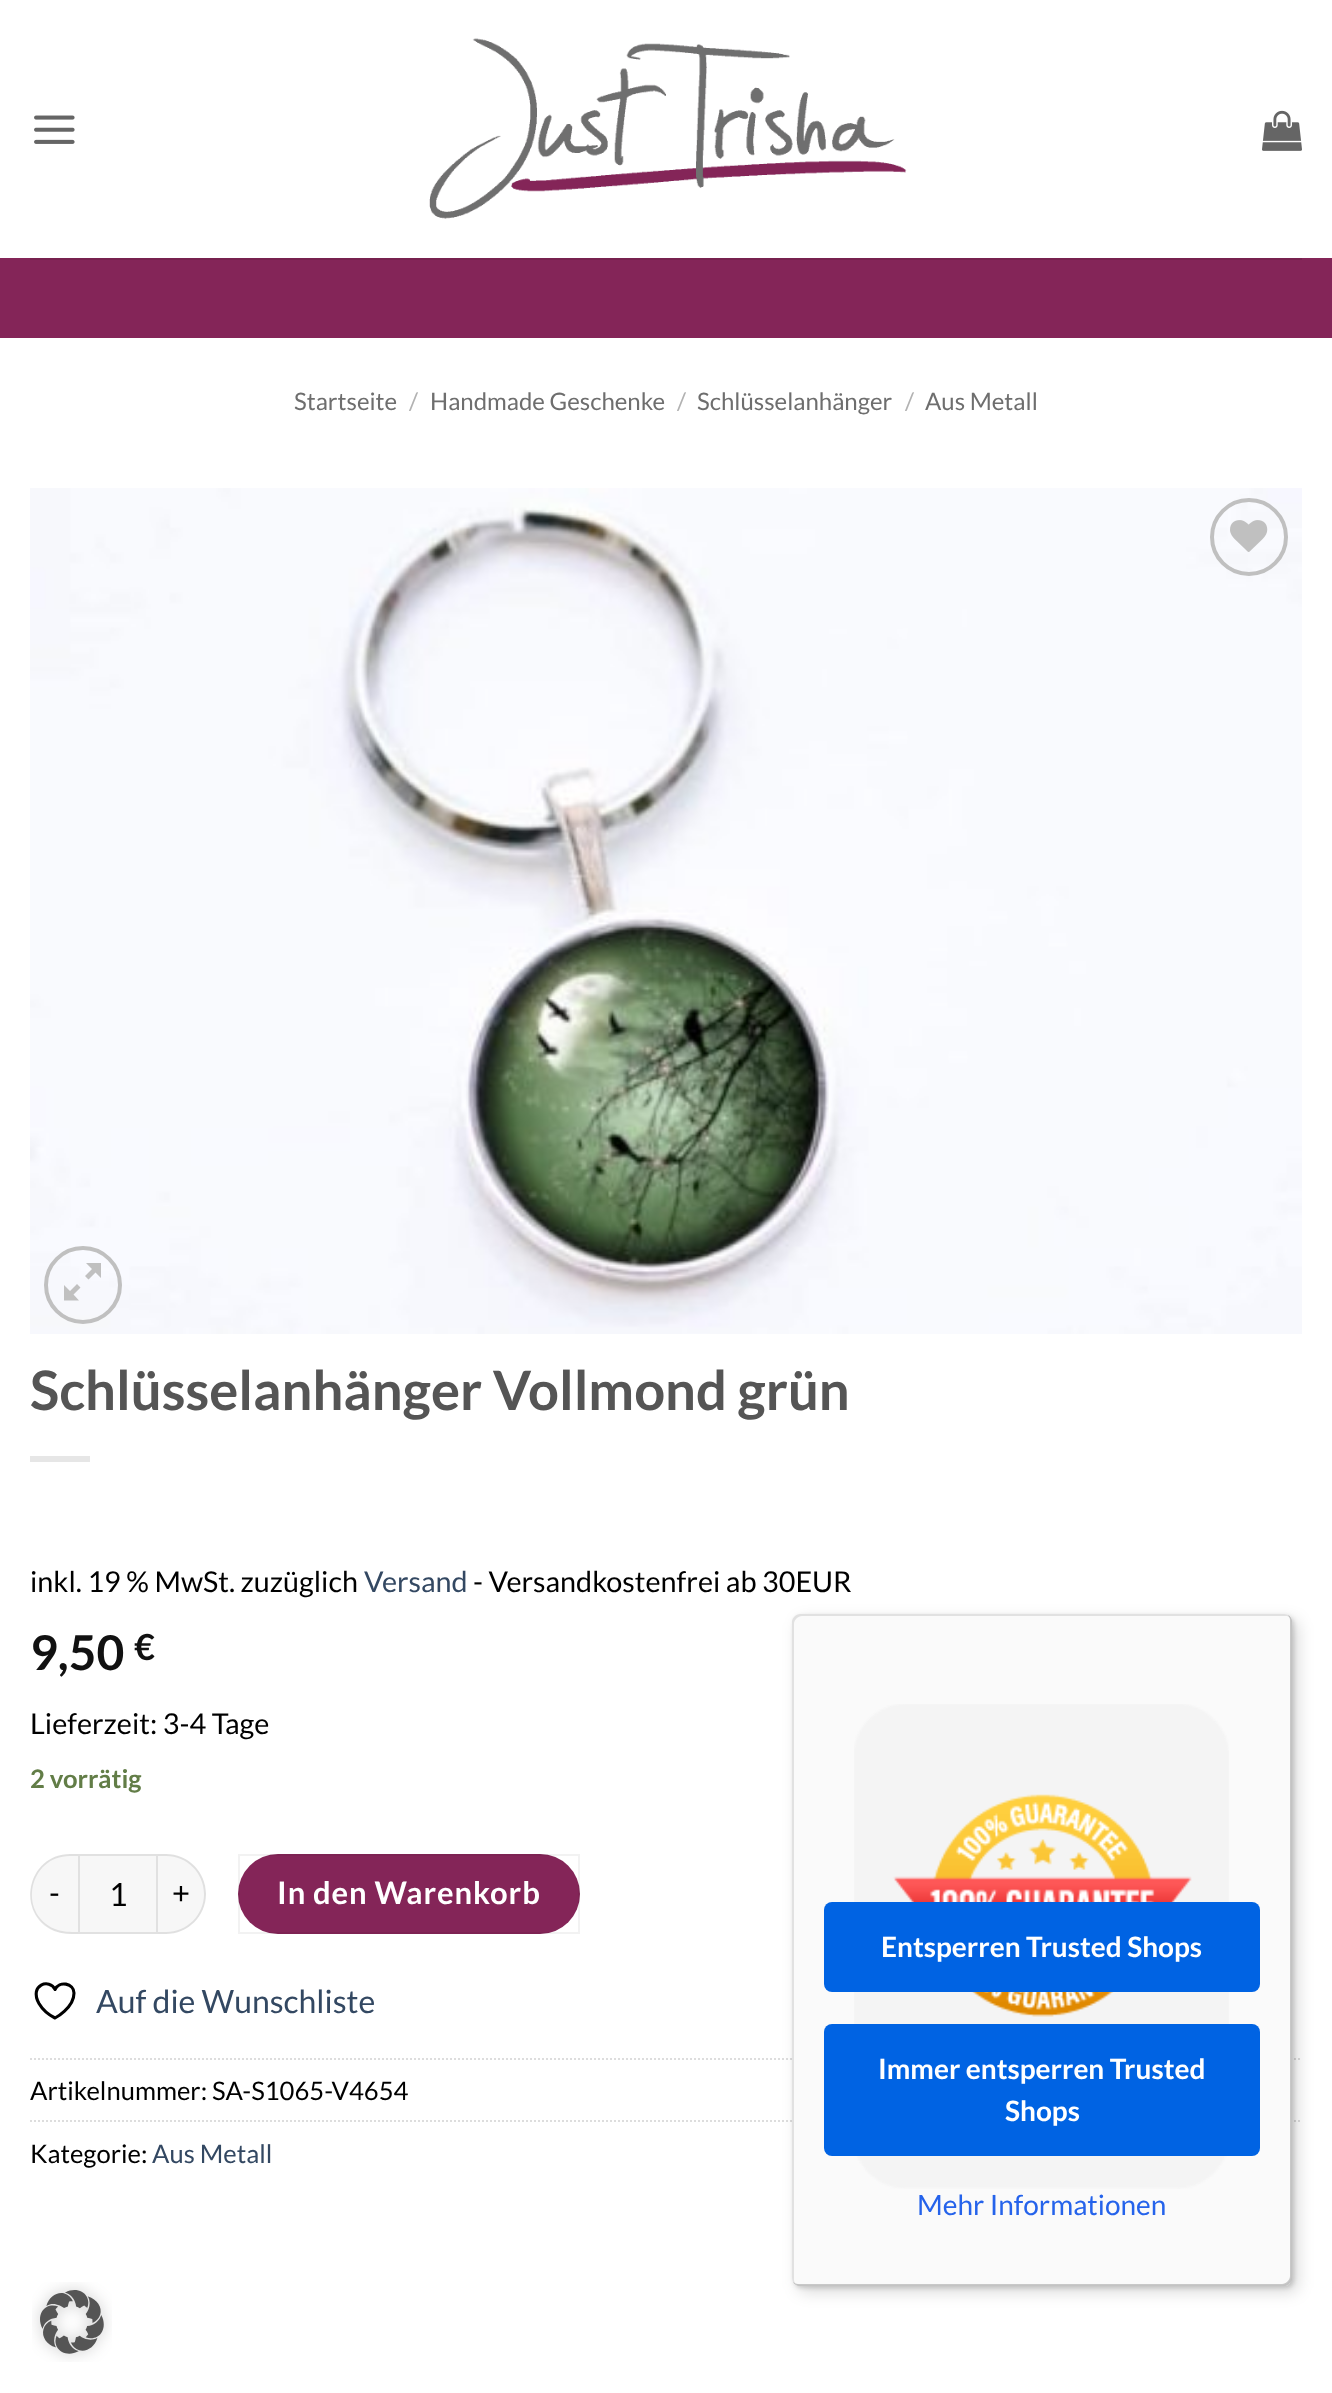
<!DOCTYPE html>
<meta charset="utf-8">
<style>body { margin: 0 } canvas { display: block }</style>
<canvas id="canvas" width="1332" height="2393"></canvas>
<img id="img1" src="img_01.png" hidden>
<img id="img2" src="img_02.png" hidden>
<img id="img3" src="img_03.png" hidden>
<img id="img4" src="img_04.png" hidden>
<img id="img5" src="img_05.png" hidden>
<img id="img6" src="img_06.png" hidden>
<img id="img7" src="img_07.png" hidden>
<script>
window.onload = function () {
	const canvas = document.getElementById("canvas");
	const ctx = canvas.getContext("2d");
	ctx.miterLimit = 4;
	ctx.fontKerning = "normal";
	function txt(s, x, y) {
		ctx.fillText(s, x, y);
	}
	function fill(x, y, w, h) {
		ctx.fillRect(x, y, w, h);
	}
	function round(x, y, w, h, r) {
		ctx.beginPath();
		ctx.roundRect(x, y, w, h, r);
		ctx.fill();
	}
	function img(id, x, y, w, h) {
		ctx.drawImage(document.getElementById(id), x, y, w, h);
	}

	ctx.fillStyle = "#FFFFFF";
	fill(0, 0, 1332, 2393);
	img("img1", 34, 115, 41, 29);
	img("img2", 429, 38, 478, 181);
	img("img3", 1262, 110, 40, 41);
	ctx.fillStyle = "#842558";
	fill(0, 258, 1332, 80);
	ctx.fillStyle = "#77214F";
	fill(30, 258, 1272, 2);
	img("img4", 30, 488, 1272, 846);
	ctx.beginPath();
	ctx.arc(1249, 537, 37, 0, Math.PI * 2);
	ctx.strokeStyle = "#C0C0C0";
	ctx.lineWidth = 4;
	ctx.stroke();
	img("img5", 1230, 520, 38, 32);
	ctx.beginPath();
	ctx.arc(83, 1285, 37, 0, Math.PI * 2);
	ctx.stroke();
	ctx.fillStyle = "#C0C0C0";
	ctx.beginPath();
	ctx.moveTo(101, 1263);
	ctx.lineTo(101, 1278);
	ctx.lineTo(95.5, 1272.5);
	ctx.lineTo(88.5, 1279.5);
	ctx.lineTo(85, 1276);
	ctx.lineTo(92, 1269);
	ctx.lineTo(86, 1263);
	ctx.closePath();
	ctx.moveTo(80.5, 1287.5);
	ctx.lineTo(73.5, 1294.5);
	ctx.lineTo(79, 1300.5);
	ctx.lineTo(64, 1300.5);
	ctx.lineTo(64, 1285);
	ctx.lineTo(70, 1291);
	ctx.lineTo(77, 1284);
	ctx.closePath();
	ctx.fill();
	ctx.fillStyle = "#E6E6E6";
	fill(30, 1456, 60, 6);
	ctx.fillStyle = "#F7F7F7";
	ctx.beginPath();
	ctx.roundRect(30, 1854, 48, 80, [40, 0, 0, 40]);
	ctx.fill();
	ctx.fillStyle = "rgba(0, 0, 0, 0.09)";
	ctx.beginPath();
	ctx.moveTo(70, 1854);
	ctx.lineTo(78, 1854);
	ctx.lineTo(78, 1934);
	ctx.bezierCurveTo(70, 1934, 62, 1934, 54, 1931);
	ctx.bezierCurveTo(15, 1914, 27, 1854, 70, 1854);
	ctx.closePath();
	ctx.moveTo(70, 1856);
	ctx.lineTo(78, 1856);
	ctx.lineTo(78, 1932);
	ctx.bezierCurveTo(70, 1932, 63, 1932, 55, 1929);
	ctx.bezierCurveTo(17, 1913, 29, 1856, 70, 1856);
	ctx.closePath();
	ctx.fill("evenodd");
	ctx.fillStyle = "#F7F7F7";
	ctx.beginPath();
	ctx.rect(79, 1855, 78, 78);
	ctx.fill();
	ctx.strokeStyle = "#E1E1E1";
	ctx.lineWidth = 2;
	ctx.stroke();
	ctx.beginPath();
	ctx.roundRect(158, 1854, 48, 80, [0, 40, 40, 0]);
	ctx.fill();
	ctx.fillStyle = "rgba(0, 0, 0, 0.09)";
	ctx.beginPath();
	ctx.moveTo(158, 1854);
	ctx.lineTo(166, 1854);
	ctx.bezierCurveTo(188, 1854, 206, 1872, 206, 1894);
	ctx.bezierCurveTo(206, 1916, 188, 1934, 166, 1934);
	ctx.lineTo(158, 1934);
	ctx.closePath();
	ctx.moveTo(158, 1856);
	ctx.lineTo(166, 1856);
	ctx.bezierCurveTo(187, 1856, 204, 1873, 204, 1894);
	ctx.bezierCurveTo(204, 1915, 187, 1932, 166, 1932);
	ctx.lineTo(158, 1932);
	ctx.closePath();
	ctx.fill("evenodd");
	ctx.fillStyle = "#842558";
	round(238, 1854, 342, 80, 40);
	ctx.strokeStyle = "rgba(0, 0, 0, 0.05)";
	ctx.strokeRect(239, 1855, 340, 78);
	ctx.beginPath();
	ctx.moveTo(74, 1993);
	ctx.bezierCurveTo(74, 1983, 59, 1980.5, 55, 1989.5);
	ctx.bezierCurveTo(50, 1978, 28.5, 1984.5, 39, 2003.5);
	ctx.bezierCurveTo(42.5, 2009.5, 49, 2015, 55, 2018);
	ctx.bezierCurveTo(55, 2018, 74, 2008, 74, 1993);
	ctx.closePath();
	ctx.strokeStyle = "#000000";
	ctx.lineWidth = 3.1;
	ctx.lineCap = "round";
	ctx.lineJoin = "round";
	ctx.stroke();
	ctx.beginPath();
	ctx.moveTo(30, 2059);
	ctx.lineTo(1302, 2059);
	ctx.strokeStyle = "#DDDDDD";
	ctx.lineWidth = 2;
	ctx.lineCap = "butt";
	ctx.lineJoin = "miter";
	ctx.setLineDash([2, 2]);
	ctx.stroke();
	ctx.beginPath();
	ctx.moveTo(30, 2121);
	ctx.lineTo(1302, 2121);
	ctx.stroke();
	ctx.fillStyle = "rgba(0, 0, 0, 0.15)";
	ctx.filter = "blur(8px)";
	ctx.beginPath();
	ctx.roundRect(798, 1620, 500, 672, 8);
	ctx.fill();
	ctx.filter = "none";
	ctx.filter = "blur(2px)";
	ctx.beginPath();
	ctx.roundRect(794, 1616, 500, 672, 8);
	ctx.fill();
	ctx.filter = "none";
	ctx.fillStyle = "#FAFAFA";
	round(792, 1614, 500, 672, 8);
	ctx.fillStyle = "#E1E1E1";
	ctx.beginPath();
	ctx.moveTo(802, 1616);
	ctx.lineTo(1287, 1616);
	ctx.lineTo(1291, 1618);
	ctx.bezierCurveTo(1290, 1616, 1287, 1614, 1284, 1614);
	ctx.lineTo(800, 1614);
	ctx.bezierCurveTo(796, 1614, 792, 1618, 792, 1622);
	ctx.lineTo(792, 2278);
	ctx.bezierCurveTo(792, 2281, 794, 2284, 796, 2285);
	ctx.bezierCurveTo(795, 2283, 794, 2282, 794, 2280);
	ctx.lineTo(794, 1624);
	ctx.bezierCurveTo(794, 1620, 798, 1616, 802, 1616);
	ctx.closePath();
	ctx.fill();
	ctx.fillStyle = "rgba(0, 0, 0, 0.2)";
	ctx.beginPath();
	ctx.moveTo(793, 2282);
	ctx.bezierCurveTo(794, 2284, 797, 2286, 800, 2286);
	ctx.lineTo(1284, 2286);
	ctx.bezierCurveTo(1288, 2286, 1292, 2282, 1292, 2278);
	ctx.lineTo(1292, 1622);
	ctx.bezierCurveTo(1292, 1619, 1290, 1616, 1288, 1615);
	ctx.bezierCurveTo(1289, 1617, 1290, 1618, 1290, 1620);
	ctx.lineTo(1290, 2276);
	ctx.bezierCurveTo(1290, 2280, 1286, 2284, 1282, 2284);
	ctx.lineTo(798, 2284);
	ctx.bezierCurveTo(796, 2284, 795, 2283, 793, 2282);
	ctx.closePath();
	ctx.fill();
	ctx.fillStyle = "rgba(50, 50, 50, 0.2)";
	ctx.beginPath();
	ctx.moveTo(794, 2283);
	ctx.bezierCurveTo(796, 2285, 798, 2286, 800, 2286);
	ctx.lineTo(1284, 2286);
	ctx.bezierCurveTo(1288, 2286, 1292, 2282, 1292, 2278);
	ctx.lineTo(1292, 1622);
	ctx.bezierCurveTo(1292, 1620, 1291, 1618, 1289, 1616);
	ctx.bezierCurveTo(1290, 1617, 1291, 1619, 1291, 1621);
	ctx.lineTo(1291, 2277);
	ctx.bezierCurveTo(1291, 2281, 1287, 2285, 1283, 2285);
	ctx.lineTo(799, 2285);
	ctx.bezierCurveTo(797, 2285, 795, 2284, 794, 2283);
	ctx.closePath();
	ctx.fill();
	ctx.fillStyle = "rgba(255, 255, 255, 0.3)";
	ctx.beginPath();
	ctx.moveTo(793, 2282);
	ctx.bezierCurveTo(795, 2284, 797, 2286, 800, 2286);
	ctx.lineTo(1284, 2286);
	ctx.bezierCurveTo(1288, 2286, 1292, 2282, 1292, 2278);
	ctx.lineTo(1292, 1622);
	ctx.bezierCurveTo(1292, 1619, 1290, 1617, 1288, 1615);
	ctx.bezierCurveTo(1290, 1617, 1291, 1619, 1291, 1621);
	ctx.lineTo(1291, 2277);
	ctx.bezierCurveTo(1291, 2281, 1287, 2285, 1283, 2285);
	ctx.lineTo(799, 2285);
	ctx.bezierCurveTo(797, 2285, 795, 2284, 793, 2282);
	ctx.closePath();
	ctx.fill();
	img("img6", 854, 1704, 375, 485);
	ctx.fillStyle = "#0063E3";
	round(824, 1902, 436, 90, 8);
	round(824, 2024, 436, 132, 8);
	img("img7", 32, 2282, 80, 80);
	ctx.font = "24px Lato";
	ctx.fillStyle = "#6E6E6E";
	txt("Startseite", 294, 410);
	ctx.fillStyle = "#B2B2B2";
	txt("/", 409, 410);
	ctx.fillStyle = "#6E6E6E";
	txt("Handmade Geschenke", 430, 410);
	ctx.fillStyle = "#B2B2B2";
	txt("/", 677, 410);
	ctx.fillStyle = "#6E6E6E";
	txt("Schlüsselanhänger", 697, 410);
	ctx.fillStyle = "#B2B2B2";
	txt("/", 905, 410);
	ctx.fillStyle = "#6E6E6E";
	txt("Aus Metall", 925, 410);
	ctx.font = "bold 54.4px Lato";
	ctx.fillStyle = "#555555";
	txt("Schlüsselanhänger Vollmond grün", 30, 1410);
	ctx.font = "28.75px Lato";
	ctx.fillStyle = "#000000";
	txt("inkl. 19 % MwSt. zuzüglich", 30, 1592);
	ctx.fillStyle = "#334862";
	txt("Versand", 364, 1592);
	ctx.fillStyle = "#000000";
	txt("- Versandkostenfrei ab 30EUR", 473, 1592);
	ctx.font = "bold 48px Lato";
	ctx.fillStyle = "#111111";
	txt("9,50", 30, 1670);
	ctx.font = "bold 36px Lato";
	txt("€", 134, 1660);
	ctx.font = "28.75px Lato";
	ctx.fillStyle = "#000000";
	txt("Lieferzeit: 3-4 Tage", 30, 1734);
	ctx.font = "bold 25.6px Lato";
	ctx.fillStyle = "#627D47";
	txt("2 vorrätig", 30, 1788);
	ctx.letterSpacing = "0.9px";
	ctx.font = "31px Lato";
	ctx.fillStyle = "#000000";
	txt("-", 49, 1904);
	ctx.letterSpacing = "0px";
	ctx.font = "32px Lato";
	txt("1", 109, 1906);
	ctx.letterSpacing = "0.9px";
	ctx.font = "31px Lato";
	txt("+", 172, 1904);
	ctx.font = "bold 31px Lato";
	ctx.fillStyle = "#FFFFFF";
	txt("In den Warenkorb", 277, 1904);
	ctx.letterSpacing = "0px";
	ctx.font = "32px Lato";
	ctx.fillStyle = "#334862";
	txt("Auf die Wunschliste", 96, 2013);
	ctx.font = "25.6px Lato";
	ctx.fillStyle = "#000000";
	txt("Artikelnummer: SA-S1065-V4654", 30, 2100);
	txt("Kategorie:", 30, 2163);
	ctx.fillStyle = "#334862";
	txt("Aus Metall", 152, 2163);
	ctx.font = "bold 28px Lato";
	ctx.fillStyle = "#FFFFFF";
	txt("Entsperren Trusted Shops", 881, 1957);
	txt("Immer entsperren Trusted", 878, 2079);
	txt("Shops", 1005, 2121);
	ctx.font = "28px Lato";
	ctx.fillStyle = "#2563EB";
	txt("Mehr Informationen", 917, 2215);
};
</script>
